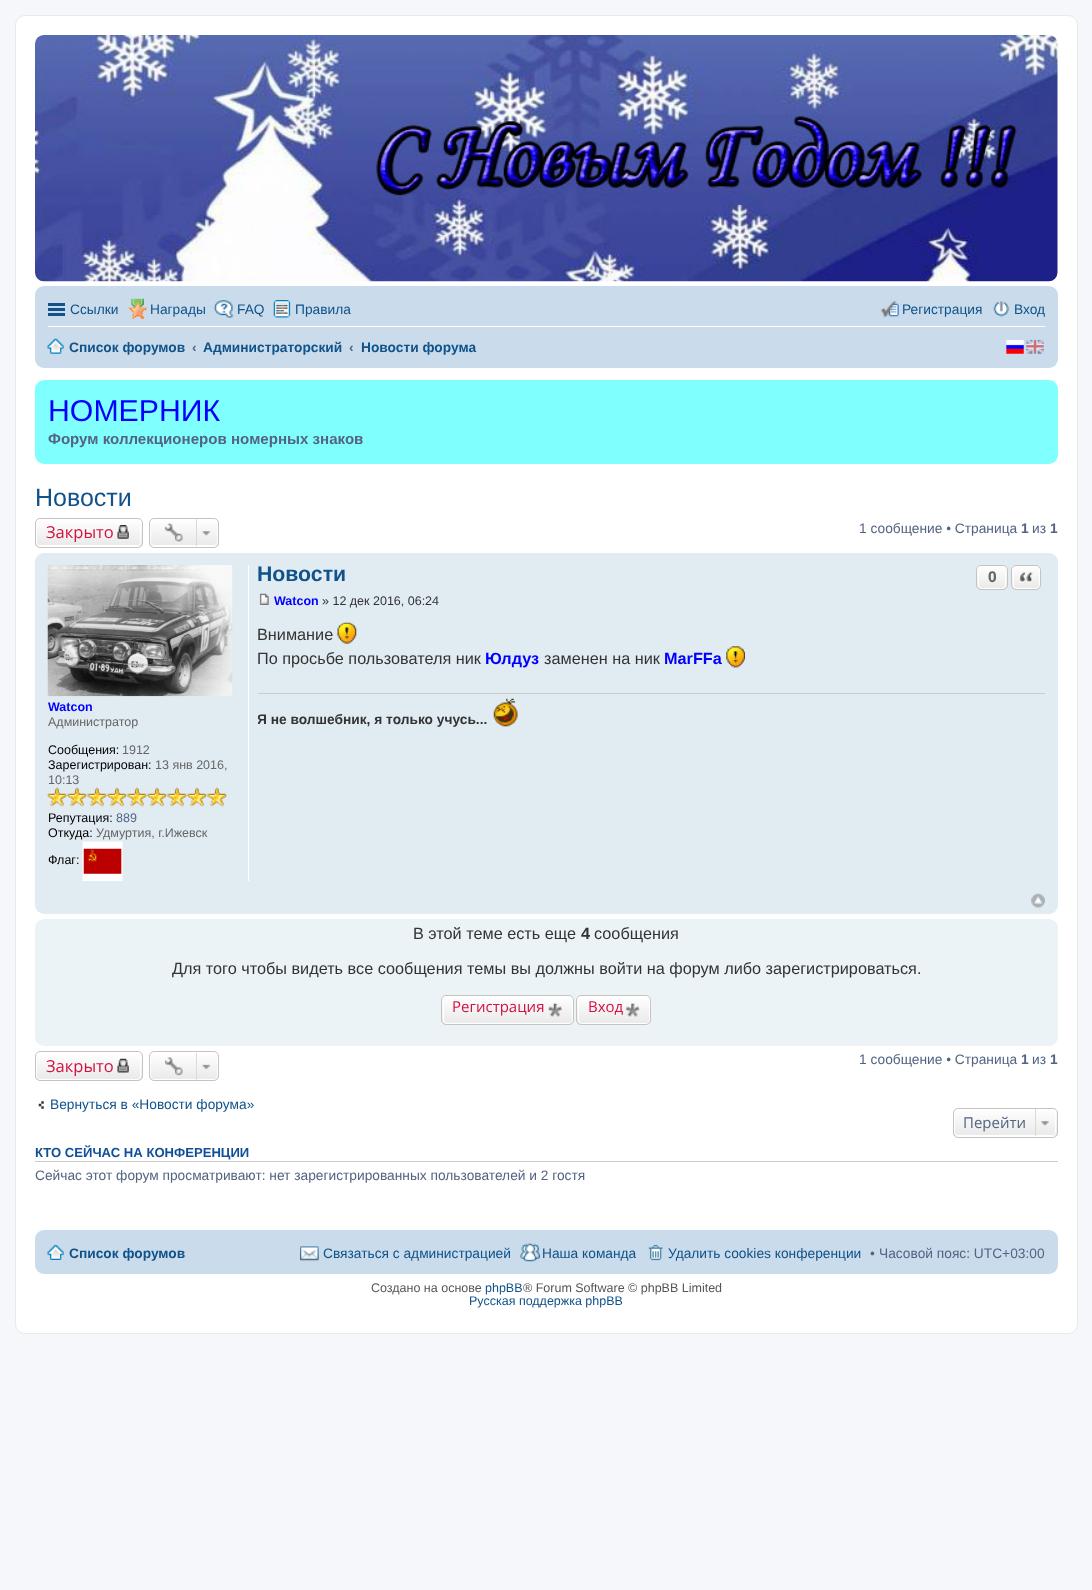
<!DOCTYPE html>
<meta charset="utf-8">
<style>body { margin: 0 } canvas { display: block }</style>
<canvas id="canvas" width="1092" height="1590"></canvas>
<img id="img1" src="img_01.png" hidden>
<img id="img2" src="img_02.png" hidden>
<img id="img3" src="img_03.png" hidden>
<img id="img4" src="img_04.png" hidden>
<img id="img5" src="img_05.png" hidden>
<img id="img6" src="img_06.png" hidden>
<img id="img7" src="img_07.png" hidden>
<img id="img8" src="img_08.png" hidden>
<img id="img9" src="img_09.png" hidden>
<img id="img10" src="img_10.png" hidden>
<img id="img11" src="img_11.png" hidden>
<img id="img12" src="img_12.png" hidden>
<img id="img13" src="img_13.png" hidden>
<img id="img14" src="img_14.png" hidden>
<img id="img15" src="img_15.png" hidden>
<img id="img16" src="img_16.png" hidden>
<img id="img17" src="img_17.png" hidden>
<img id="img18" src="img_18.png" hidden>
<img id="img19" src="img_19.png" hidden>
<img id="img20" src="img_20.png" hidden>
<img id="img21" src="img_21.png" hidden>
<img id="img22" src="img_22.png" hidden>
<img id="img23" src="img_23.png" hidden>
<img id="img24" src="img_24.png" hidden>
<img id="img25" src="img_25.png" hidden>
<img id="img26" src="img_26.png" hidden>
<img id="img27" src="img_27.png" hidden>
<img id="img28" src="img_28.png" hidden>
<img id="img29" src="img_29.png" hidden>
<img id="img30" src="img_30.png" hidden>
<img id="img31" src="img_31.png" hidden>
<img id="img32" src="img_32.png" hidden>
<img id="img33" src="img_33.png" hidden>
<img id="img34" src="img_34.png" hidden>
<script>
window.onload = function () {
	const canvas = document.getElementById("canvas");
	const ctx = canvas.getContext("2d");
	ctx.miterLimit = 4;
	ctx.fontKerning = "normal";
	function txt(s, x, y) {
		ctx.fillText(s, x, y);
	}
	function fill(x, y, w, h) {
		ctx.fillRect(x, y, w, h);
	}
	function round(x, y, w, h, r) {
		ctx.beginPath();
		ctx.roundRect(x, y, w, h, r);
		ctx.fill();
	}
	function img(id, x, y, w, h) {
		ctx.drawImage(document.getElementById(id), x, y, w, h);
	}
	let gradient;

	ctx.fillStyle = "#F5F7FA";
	fill(0, 0, 1092, 1590);
	ctx.fillStyle = "#FFFFFF";
	ctx.beginPath();
	ctx.roundRect(15.5, 15.5, 1062, 1318, 9.5);
	ctx.fill();
	ctx.strokeStyle = "#E6E9ED";
	ctx.stroke();
	img("img1", 35, 35, 1023, 247);
	ctx.fillStyle = "#CADCEB";
	round(35, 286, 1023, 82, 9);
	ctx.fillStyle = "#105289";
	fill(48, 303, 17, 3);
	fill(48, 308, 17, 3);
	fill(48, 313, 17, 3);
	img("img2", 128, 298, 19, 21);
	img("img3", 213, 300, 21, 18);
	img("img4", 273, 300, 18, 18);
	img("img5", 881, 301, 18, 17);
	img("img6", 993, 301, 16, 16);
	ctx.fillStyle = "#FFFFFF";
	fill(48, 326, 997, 1);
	img("img7", 47, 338, 17, 16);
	img("img8", 1006, 340, 18, 14);
	img("img9", 1026, 339, 18, 15);
	ctx.fillStyle = "#80FFFF";
	round(35, 380, 1023, 84, 9);
	ctx.save();
	ctx.beginPath();
	ctx.roundRect(35, 518, 108, 30, 5);
	ctx.clip();
	gradient = ctx.createLinearGradient(89, 519, 89, 546);
	gradient.addColorStop(0, "#FFFFFF");
	gradient.addColorStop(1, "#E9E9E9");
	ctx.fillStyle = gradient;
	fill(35, 519, 108, 27);
	ctx.restore();
	ctx.beginPath();
	ctx.roundRect(36.5, 519.5, 104, 26, 3.5);
	ctx.strokeStyle = "#FFFFFF";
	ctx.stroke();
	ctx.beginPath();
	ctx.roundRect(35.5, 518.5, 107, 29, 4.5);
	ctx.strokeStyle = "#C7C3BF";
	ctx.stroke();
	img("img10", 117, 525, 12, 14);
	ctx.save();
	ctx.beginPath();
	ctx.roundRect(149, 518, 70, 30, 5);
	ctx.clip();
	gradient = ctx.createLinearGradient(184, 519, 184, 546);
	gradient.addColorStop(0, "#FFFFFF");
	gradient.addColorStop(1, "#E9E9E9");
	ctx.fillStyle = gradient;
	fill(149, 519, 70, 27);
	ctx.restore();
	ctx.beginPath();
	ctx.roundRect(150.5, 519.5, 67, 26, 3.5);
	ctx.strokeStyle = "#FFFFFF";
	ctx.stroke();
	ctx.beginPath();
	ctx.roundRect(149.5, 518.5, 69, 29, 4.5);
	ctx.strokeStyle = "#C7C3BF";
	ctx.stroke();
	img("img11", 164, 523, 19, 19);
	img("img12", 202, 531, 9, 5);
	ctx.fillStyle = "#DADADA";
	fill(196, 519, 1, 27);
	ctx.fillStyle = "#E1EBF2";
	round(35, 553, 1023, 361, 9);
	ctx.save();
	ctx.beginPath();
	ctx.roundRect(976, 565, 32, 25, 5);
	ctx.clip();
	gradient = ctx.createLinearGradient(992, 566, 992, 589);
	gradient.addColorStop(0, "#FFFFFF");
	gradient.addColorStop(1, "#E9E9E9");
	ctx.fillStyle = gradient;
	fill(976, 566, 32, 23);
	ctx.restore();
	ctx.beginPath();
	ctx.roundRect(978.5, 566.5, 27, 22, 3.5);
	ctx.strokeStyle = "#FFFFFF";
	ctx.stroke();
	ctx.beginPath();
	ctx.roundRect(976.5, 565.5, 31, 24, 4.5);
	ctx.strokeStyle = "#C7C3BF";
	ctx.stroke();
	ctx.save();
	ctx.beginPath();
	ctx.roundRect(1011, 565, 30, 25, 5);
	ctx.clip();
	gradient = ctx.createLinearGradient(1026, 566, 1026, 589);
	gradient.addColorStop(0, "#FFFFFF");
	gradient.addColorStop(1, "#E9E9E9");
	ctx.fillStyle = gradient;
	fill(1011, 566, 30, 23);
	ctx.restore();
	ctx.beginPath();
	ctx.roundRect(1013.5, 566.5, 26, 22, 3.5);
	ctx.strokeStyle = "#FFFFFF";
	ctx.stroke();
	ctx.beginPath();
	ctx.roundRect(1011.5, 565.5, 29, 24, 4.5);
	ctx.strokeStyle = "#C7C3BF";
	ctx.stroke();
	img("img13", 1020, 572, 13, 11);
	img("img14", 259, 593, 10, 12);
	img("img15", 337, 622, 20, 22);
	img("img16", 726, 646, 19, 22);
	ctx.fillStyle = "#CCCCCC";
	fill(258, 693, 787, 1);
	img("img17", 493, 698, 25, 29);
	ctx.fillStyle = "#FFFFFF";
	fill(248, 565, 1, 316);
	img("img18", 47, 565, 186, 132);
	img("img19", 47, 787, 20, 20);
	img("img20", 67, 787, 20, 20);
	img("img21", 87, 787, 20, 20);
	img("img21", 107, 787, 20, 20);
	img("img21", 127, 787, 20, 20);
	img("img21", 147, 787, 20, 20);
	img("img21", 167, 787, 20, 20);
	img("img21", 187, 787, 20, 20);
	img("img21", 207, 787, 20, 20);
	img("img22", 82, 841, 41, 40);
	img("img23", 1031, 893, 14, 15);
	ctx.fillStyle = "#ECF3F7";
	round(35, 919, 1023, 127, 9);
	ctx.save();
	ctx.beginPath();
	ctx.roundRect(441, 995, 133, 30, 5);
	ctx.clip();
	gradient = ctx.createLinearGradient(508, 996, 508, 1024);
	gradient.addColorStop(0, "#FFFFFF");
	gradient.addColorStop(1, "#E9E9E9");
	ctx.fillStyle = gradient;
	fill(441, 996, 133, 28);
	ctx.restore();
	ctx.beginPath();
	ctx.roundRect(443.5, 996.5, 129, 27, 3.5);
	ctx.strokeStyle = "#FFFFFF";
	ctx.stroke();
	ctx.beginPath();
	ctx.roundRect(441.5, 995.5, 132, 29, 4.5);
	ctx.strokeStyle = "#C7C3BF";
	ctx.stroke();
	img("img24", 548, 1003, 15, 15);
	ctx.save();
	ctx.beginPath();
	ctx.roundRect(576, 995, 75, 30, 5);
	ctx.clip();
	gradient = ctx.createLinearGradient(614, 996, 614, 1024);
	gradient.addColorStop(0, "#FFFFFF");
	gradient.addColorStop(1, "#E9E9E9");
	ctx.fillStyle = gradient;
	fill(576, 996, 75, 28);
	ctx.restore();
	ctx.beginPath();
	ctx.roundRect(578.5, 996.5, 71, 27, 3.5);
	ctx.strokeStyle = "#FFFFFF";
	ctx.stroke();
	ctx.beginPath();
	ctx.roundRect(576.5, 995.5, 74, 29, 4.5);
	ctx.strokeStyle = "#C7C3BF";
	ctx.stroke();
	img("img25", 626, 1003, 14, 15);
	ctx.save();
	ctx.beginPath();
	ctx.roundRect(35, 1051, 108, 30, 5);
	ctx.clip();
	gradient = ctx.createLinearGradient(89, 1053, 89, 1080);
	gradient.addColorStop(0, "#FFFFFF");
	gradient.addColorStop(1, "#E9E9E9");
	ctx.fillStyle = gradient;
	fill(35, 1053, 108, 27);
	ctx.restore();
	ctx.beginPath();
	ctx.roundRect(36.5, 1053.5, 104, 26, 3.5);
	ctx.strokeStyle = "#FFFFFF";
	ctx.stroke();
	ctx.beginPath();
	ctx.roundRect(35.5, 1051.5, 107, 29, 4.5);
	ctx.strokeStyle = "#C7C3BF";
	ctx.stroke();
	img("img26", 117, 1058, 12, 15);
	ctx.save();
	ctx.beginPath();
	ctx.roundRect(149, 1051, 70, 30, 5);
	ctx.clip();
	gradient = ctx.createLinearGradient(184, 1053, 184, 1080);
	gradient.addColorStop(0, "#FFFFFF");
	gradient.addColorStop(1, "#E9E9E9");
	ctx.fillStyle = gradient;
	fill(149, 1053, 70, 27);
	ctx.restore();
	ctx.beginPath();
	ctx.roundRect(150.5, 1053.5, 67, 26, 3.5);
	ctx.strokeStyle = "#FFFFFF";
	ctx.stroke();
	ctx.beginPath();
	ctx.roundRect(149.5, 1051.5, 69, 29, 4.5);
	ctx.strokeStyle = "#C7C3BF";
	ctx.stroke();
	img("img27", 164, 1057, 19, 19);
	img("img28", 202, 1064, 9, 6);
	ctx.fillStyle = "#DADADA";
	fill(196, 1053, 1, 27);
	img("img29", 38, 1101, 6, 8);
	ctx.save();
	ctx.beginPath();
	ctx.roundRect(953, 1108, 105, 30, 5);
	ctx.clip();
	gradient = ctx.createLinearGradient(1005, 1109, 1005, 1136);
	gradient.addColorStop(0, "#FFFFFF");
	gradient.addColorStop(1, "#E9E9E9");
	ctx.fillStyle = gradient;
	fill(953, 1109, 105, 27);
	ctx.restore();
	ctx.beginPath();
	ctx.roundRect(954.5, 1109.5, 101, 26, 3.5);
	ctx.strokeStyle = "#FFFFFF";
	ctx.stroke();
	ctx.beginPath();
	ctx.roundRect(953.5, 1108.5, 104, 29, 4.5);
	ctx.strokeStyle = "#C7C3BF";
	ctx.stroke();
	img("img30", 1041, 1121, 8, 5);
	fill(1035, 1109, 1, 27);
	ctx.fillStyle = "#CCCCCC";
	fill(35, 1161, 1023, 1);
	ctx.fillStyle = "#CADCEB";
	round(35, 1230, 1023, 44, 9);
	img("img31", 47, 1245, 17, 15);
	img("img32", 300, 1246, 19, 16);
	img("img33", 520, 1243, 20, 19);
	img("img34", 648, 1244, 15, 17);
	ctx.font = "13.75px Liberation Sans";
	ctx.fillStyle = "#105289";
	txt("Ссылки", 70, 314);
	txt("Награды", 150, 314);
	txt("FAQ", 237, 314);
	txt("Правила", 295, 314);
	txt("Регистрация", 902, 314);
	txt("Вход", 1014, 314);
	ctx.font = "bold 13.75px Liberation Sans";
	txt("Список форумов", 69, 352);
	ctx.fillStyle = "#536482";
	txt("‹", 192, 352);
	ctx.fillStyle = "#105289";
	txt("Администраторский", 203, 352);
	ctx.fillStyle = "#536482";
	txt("‹", 349, 352);
	ctx.fillStyle = "#105289";
	txt("Новости форума", 361, 352);
	ctx.font = "30.25px Liberation Sans";
	ctx.fillStyle = "#0000FF";
	txt("НОМЕРНИК", 48, 421);
	ctx.font = "bold 15.1px Liberation Sans";
	ctx.fillStyle = "#536482";
	txt("Форум коллекционеров номерных знаков", 48, 444);
	ctx.font = "25px Liberation Sans";
	ctx.fillStyle = "#105289";
	txt("Новости", 35, 506);
	ctx.font = "16.5px Open Sans";
	ctx.fillStyle = "#D31141";
	txt("Закрыто", 46, 538);
	ctx.font = "13.75px Liberation Sans";
	ctx.fillStyle = "#536482";
	txt("1 сообщение • Страница", 859, 533);
	ctx.font = "bold 13.75px Liberation Sans";
	txt("1", 1021, 533);
	ctx.font = "13.75px Liberation Sans";
	txt("из", 1032, 533);
	ctx.font = "bold 13.75px Liberation Sans";
	txt("1", 1050, 533);
	ctx.font = "bold 21.25px Liberation Sans";
	ctx.fillStyle = "#105289";
	txt("Новости", 257, 581);
	ctx.font = "bold 15px Open Sans";
	ctx.fillStyle = "#666666";
	txt("0", 988, 582);
	ctx.font = "bold 12.5px Liberation Sans";
	ctx.fillStyle = "#0000FF";
	txt("Watcon", 274, 605);
	ctx.font = "12.5px Liberation Sans";
	ctx.fillStyle = "#333333";
	txt("» 12 дек 2016, 06:24", 322, 605);
	ctx.font = "16.25px Liberation Sans";
	txt("Внимание", 257, 640);
	txt("По просьбе пользователя ник", 257, 664);
	ctx.font = "bold 16.25px Liberation Sans";
	ctx.fillStyle = "#0000FF";
	txt("Юлдуз", 485, 664);
	ctx.font = "16.25px Liberation Sans";
	ctx.fillStyle = "#333333";
	txt("заменен на ник", 544, 664);
	ctx.font = "bold 16.25px Liberation Sans";
	ctx.fillStyle = "#0000FF";
	txt("MarFFa", 664, 664);
	ctx.save();
	ctx.beginPath();
	ctx.rect(258, 694, 787, 36);
	ctx.clip();
	ctx.font = "bold 13.75px Liberation Sans";
	ctx.fillStyle = "#333333";
	txt("Я не волшебник, я только учусь...", 257, 724);
	ctx.restore();
	ctx.font = "bold 12.5px Liberation Sans";
	txt("Watcon", 48, 711);
	ctx.font = "12.5px Liberation Sans";
	ctx.fillStyle = "#666666";
	txt("Администратор", 48, 726);
	ctx.fillStyle = "#000000";
	txt("Сообщения:", 48, 754);
	ctx.fillStyle = "#666666";
	txt("1912", 122, 754);
	ctx.fillStyle = "#000000";
	txt("Зарегистрирован:", 48, 769);
	ctx.fillStyle = "#666666";
	txt("13 янв 2016,", 155, 769);
	txt("10:13", 48, 784);
	ctx.fillStyle = "#000000";
	txt("Репутация:", 48, 822);
	ctx.fillStyle = "#536482";
	txt("889", 116, 822);
	ctx.fillStyle = "#000000";
	txt("Откуда:", 48, 837);
	ctx.fillStyle = "#666666";
	txt("Удмуртия, г.Ижевск", 96, 837);
	ctx.fillStyle = "#000000";
	txt("Флаг:", 48, 864);
	ctx.font = "16.25px Liberation Sans";
	ctx.fillStyle = "#333333";
	txt("В этой теме есть еще", 413, 939);
	ctx.font = "bold 16.25px Liberation Sans";
	txt("4", 581, 939);
	ctx.font = "16.25px Liberation Sans";
	txt("сообщения", 594, 939);
	txt("Для того чтобы видеть все сообщения темы вы должны войти на форум либо зарегистрироваться.", 172, 974);
	ctx.font = "15px Open Sans";
	ctx.fillStyle = "#D31141";
	txt("Регистрация", 452, 1012);
	txt("Вход", 588, 1012);
	ctx.font = "16.5px Open Sans";
	txt("Закрыто", 46, 1072);
	ctx.font = "13.75px Liberation Sans";
	ctx.fillStyle = "#536482";
	txt("1 сообщение • Страница", 859, 1064);
	ctx.font = "bold 13.75px Liberation Sans";
	txt("1", 1021, 1064);
	ctx.font = "13.75px Liberation Sans";
	txt("из", 1032, 1064);
	ctx.font = "bold 13.75px Liberation Sans";
	txt("1", 1050, 1064);
	ctx.font = "13.75px Liberation Sans";
	ctx.fillStyle = "#105289";
	txt("Вернуться в «Новости форума»", 50, 1109);
	ctx.font = "15px Open Sans";
	ctx.fillStyle = "#536482";
	txt("Перейти", 963, 1128);
	ctx.font = "bold 13.1px Liberation Sans";
	ctx.fillStyle = "#115098";
	txt("КТО СЕЙЧАС НА КОНФЕРЕНЦИИ", 35, 1157);
	ctx.font = "13.75px Liberation Sans";
	ctx.fillStyle = "#536482";
	txt("Сейчас этот форум просматривают: нет зарегистрированных пользователей и 2 гостя", 35, 1180);
	ctx.font = "bold 13.75px Liberation Sans";
	ctx.fillStyle = "#105289";
	txt("Список форумов", 69, 1258);
	ctx.font = "13.75px Liberation Sans";
	txt("Связаться с администрацией", 323, 1258);
	txt("Наша команда", 542, 1258);
	txt("Удалить cookies конференции", 668, 1258);
	ctx.fillStyle = "#536482";
	txt("•", 870, 1258);
	txt("Часовой пояс: UTC+03:00", 879, 1258);
	ctx.font = "12.5px Liberation Sans";
	ctx.fillStyle = "#555555";
	txt("Создано на основе", 371, 1292);
	ctx.fillStyle = "#105289";
	txt("phpBB", 485, 1292);
	ctx.fillStyle = "#555555";
	txt("® Forum Software © phpBB Limited", 523, 1292);
	ctx.fillStyle = "#105289";
	txt("Русская поддержка phpBB", 469, 1305);
};
</script>
